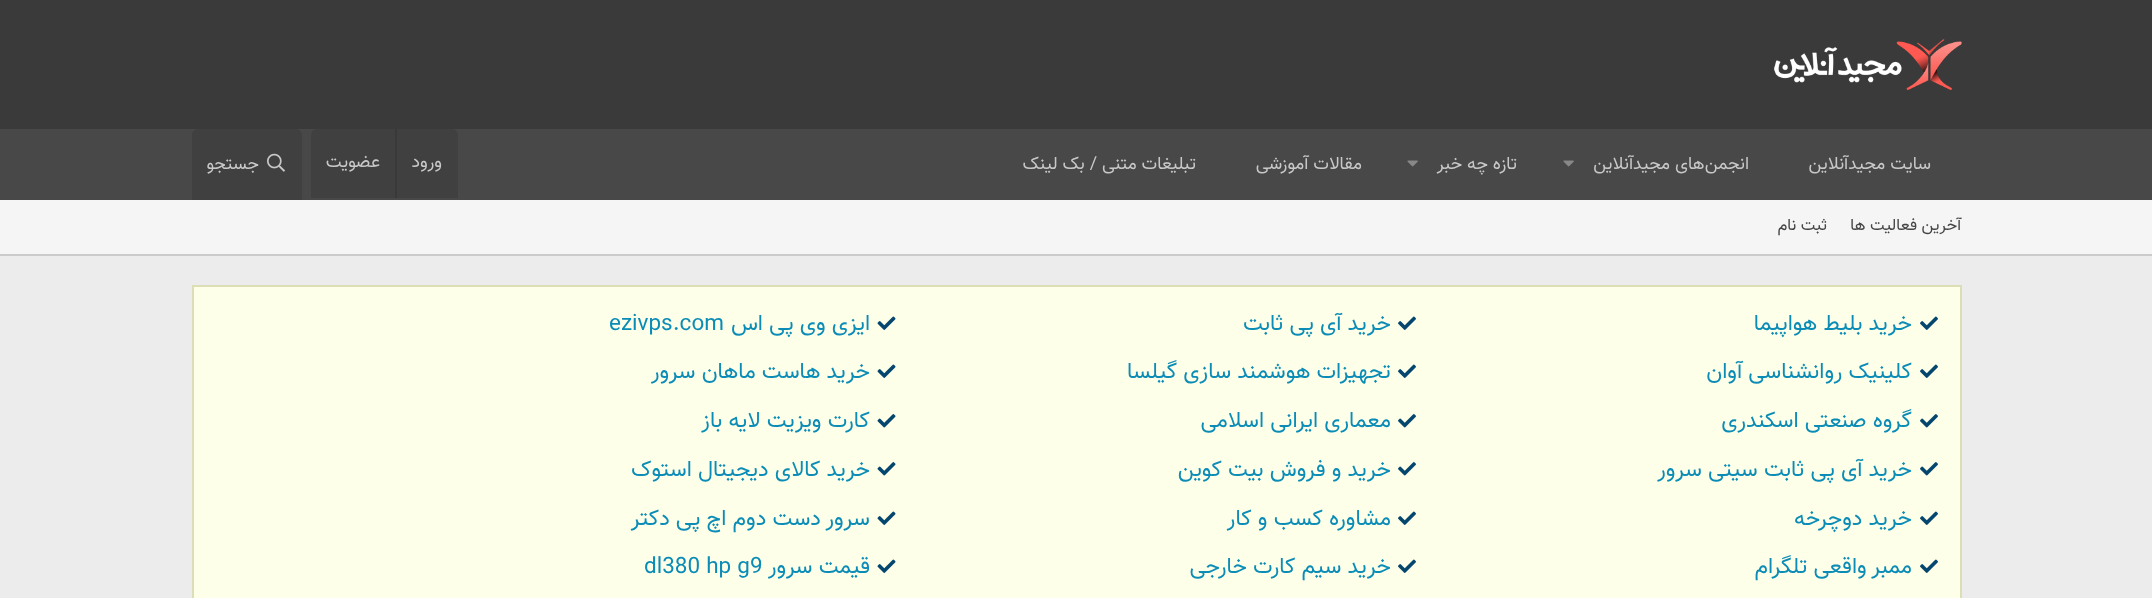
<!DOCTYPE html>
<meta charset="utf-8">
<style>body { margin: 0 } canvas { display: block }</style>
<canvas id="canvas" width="2152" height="598"></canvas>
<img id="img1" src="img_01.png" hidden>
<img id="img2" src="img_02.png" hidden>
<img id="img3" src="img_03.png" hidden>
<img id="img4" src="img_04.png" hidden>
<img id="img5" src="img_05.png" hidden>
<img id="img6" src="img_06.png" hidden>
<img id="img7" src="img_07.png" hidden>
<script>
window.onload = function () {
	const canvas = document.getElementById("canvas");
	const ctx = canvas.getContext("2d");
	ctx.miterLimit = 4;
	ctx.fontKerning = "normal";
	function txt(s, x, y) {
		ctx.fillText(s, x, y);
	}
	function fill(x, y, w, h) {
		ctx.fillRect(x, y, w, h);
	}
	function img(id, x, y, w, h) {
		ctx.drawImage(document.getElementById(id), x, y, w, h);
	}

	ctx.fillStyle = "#ECECEC";
	fill(0, 0, 2152, 598);
	ctx.fillStyle = "#3A3A3A";
	fill(0, 0, 2152, 129);
	img("img1", 1774, 39, 188, 51);
	ctx.fillStyle = "#484848";
	fill(0, 129, 2152, 71);
	img("img2", 1563, 160, 11, 7);
	img("img2", 1407, 160, 11, 7);
	ctx.fillStyle = "#404040";
	ctx.beginPath();
	ctx.roundRect(311, 129, 147, 69, [6, 6, 0, 0]);
	ctx.fill();
	ctx.fillStyle = "#393939";
	fill(395, 129, 2, 69);
	ctx.fillStyle = "#404040";
	ctx.beginPath();
	ctx.roundRect(192, 129, 110, 71, [6, 6, 0, 0]);
	ctx.fill();
	img("img3", 267, 153, 18, 19);
	ctx.fillStyle = "#F5F5F5";
	fill(0, 200, 2152, 54);
	ctx.fillStyle = "#CBCBCB";
	fill(0, 254, 2152, 2);
	ctx.fillStyle = "#FEFFE8";
	ctx.beginPath();
	ctx.rect(193, 286, 1768, 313);
	ctx.fill();
	ctx.strokeStyle = "#DCDEB5";
	ctx.lineWidth = 2;
	ctx.stroke();
	img("img4", 1920, 316, 18, 14);
	img("img4", 1398, 316, 18, 14);
	img("img5", 877, 316, 19, 14);
	img("img4", 1920, 364, 18, 14);
	img("img4", 1398, 364, 18, 14);
	img("img5", 877, 364, 19, 14);
	img("img6", 1920, 414, 18, 14);
	img("img6", 1398, 414, 18, 14);
	img("img7", 877, 414, 19, 14);
	img("img6", 1920, 462, 18, 14);
	img("img6", 1398, 462, 18, 14);
	img("img7", 877, 462, 19, 14);
	img("img4", 1920, 511, 18, 14);
	img("img4", 1398, 511, 18, 14);
	img("img5", 877, 511, 19, 14);
	img("img4", 1920, 559, 18, 14);
	img("img4", 1398, 559, 18, 14);
	img("img5", 877, 559, 19, 14);
	ctx.direction = "rtl";
	ctx.font = "18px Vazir";
	ctx.fillStyle = "#C8C8C8";
	txt("سایت مجیدآنلاین", 1931, 169);
	txt("انجمن‌های مجیدآنلاین", 1749, 169);
	txt("تازه چه خبر", 1517, 169);
	txt("مقالات آموزشی", 1362, 169);
	txt("تبلیغات متنی / بک لینک", 1196, 169);
	txt("ورود", 442, 167);
	txt("عضویت", 380, 167);
	txt("جستجو", 259, 169);
	ctx.font = "16.5px Vazir";
	ctx.fillStyle = "#444444";
	txt("آخرین فعالیت ها", 1961, 230);
	txt("ثبت نام", 1827, 230);
	ctx.font = "22.5px Vazir";
	ctx.fillStyle = "#0B8CB7";
	txt("خرید بلیط هواپیما", 1912, 330);
	txt("خرید آی پی ثابت", 1391, 330);
	txt("ایزی وی پی اس", 870, 330);
	ctx.direction = "ltr";
	txt("ezivps.com", 609, 330);
	ctx.direction = "rtl";
	txt("کلینیک روانشناسی آوان", 1912, 378);
	txt("تجهیزات هوشمند سازی گیلسا", 1391, 378);
	txt("خرید هاست ماهان سرور", 870, 378);
	txt("گروه صنعتی اسکندری", 1912, 427);
	txt("معماری ایرانی اسلامی", 1391, 427);
	txt("کارت ویزیت لایه باز", 870, 427);
	txt("خرید آی پی ثابت سیتی سرور", 1912, 476);
	txt("خرید و فروش بیت کوین", 1391, 476);
	txt("خرید کالای دیجیتال استوک", 870, 476);
	txt("خرید دوچرخه", 1912, 525);
	txt("مشاوره کسب و کار", 1391, 525);
	txt("سرور دست دوم اچ پی دکتر", 870, 525);
	txt("ممبر واقعی تلگرام", 1912, 573);
	txt("خرید سیم کارت خارجی", 1391, 573);
	txt("قیمت سرور", 870, 573);
	ctx.direction = "ltr";
	txt("dl380 hp g9", 644, 573);
};
</script>
